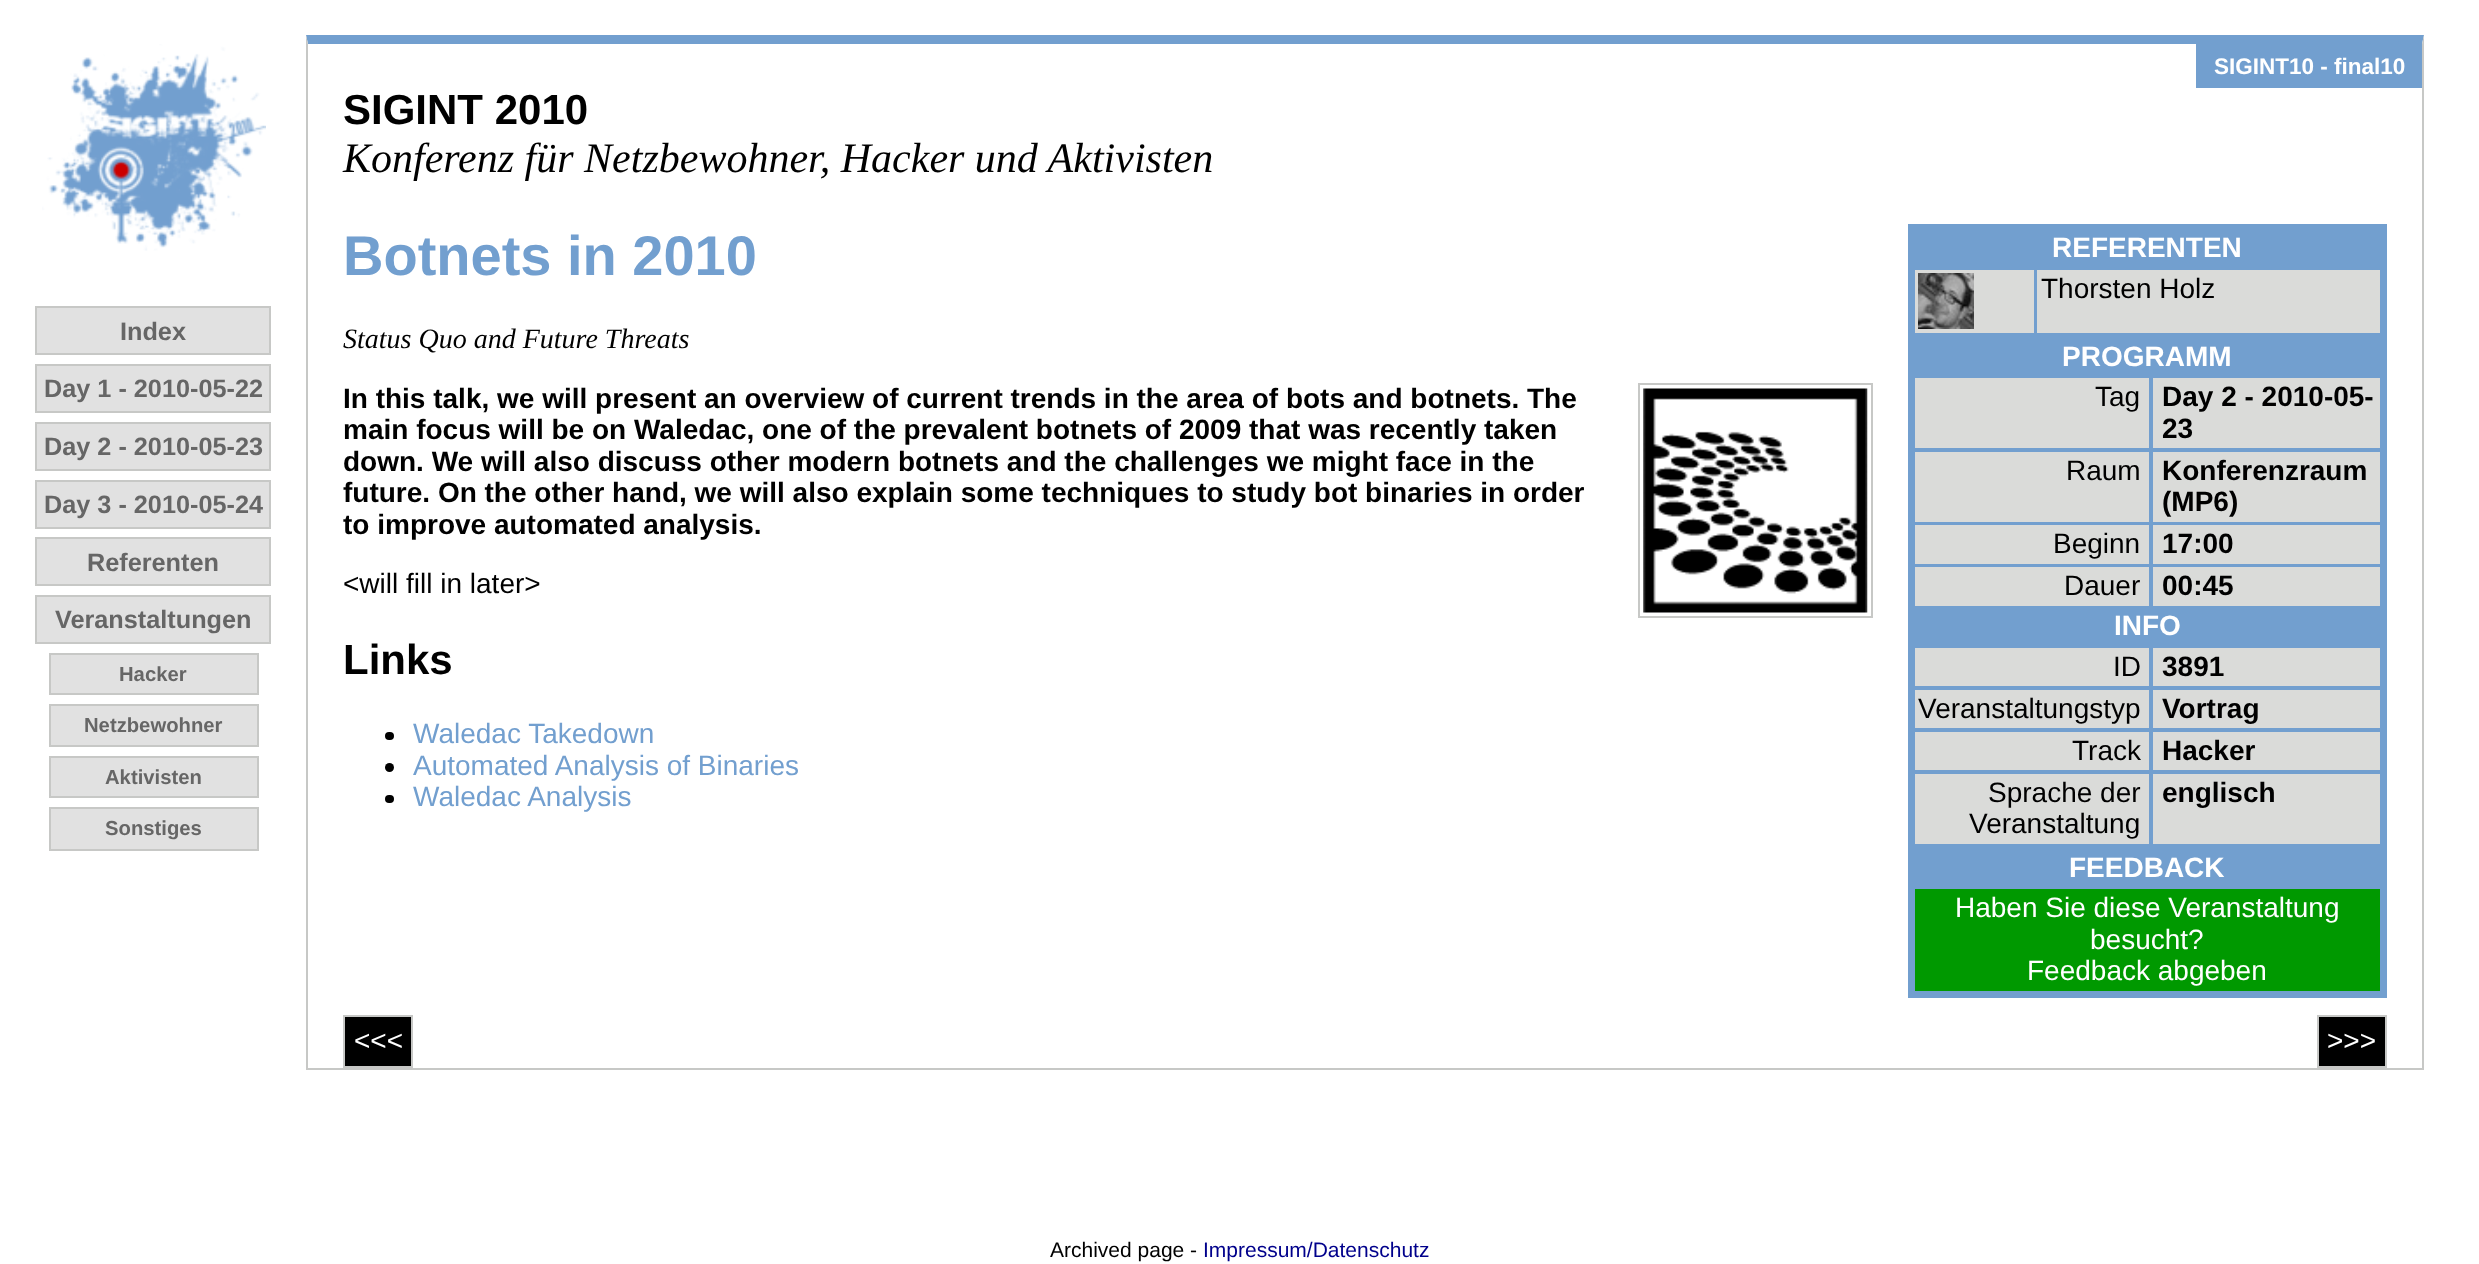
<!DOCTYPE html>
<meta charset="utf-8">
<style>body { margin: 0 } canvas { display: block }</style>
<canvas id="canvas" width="2479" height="1264"></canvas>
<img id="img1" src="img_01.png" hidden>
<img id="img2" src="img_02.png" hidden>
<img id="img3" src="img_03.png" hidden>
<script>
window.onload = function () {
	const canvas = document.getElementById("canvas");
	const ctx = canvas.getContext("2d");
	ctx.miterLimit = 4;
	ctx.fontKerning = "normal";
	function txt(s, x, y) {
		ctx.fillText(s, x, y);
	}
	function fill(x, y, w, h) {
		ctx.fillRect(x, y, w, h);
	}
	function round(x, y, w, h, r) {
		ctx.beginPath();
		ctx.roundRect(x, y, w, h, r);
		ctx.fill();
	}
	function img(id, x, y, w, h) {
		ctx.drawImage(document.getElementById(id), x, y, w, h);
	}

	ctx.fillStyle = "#FFFFFF";
	fill(0, 0, 2479, 1264);
	img("img1", 42, 44, 224, 207);
	ctx.fillStyle = "#729FCF";
	ctx.beginPath();
	ctx.moveTo(306, 35);
	ctx.lineTo(2424, 35);
	ctx.lineTo(2422, 44);
	ctx.lineTo(308, 44);
	ctx.closePath();
	ctx.fill();
	ctx.fillStyle = "#C7C8C6";
	ctx.beginPath();
	ctx.moveTo(2424, 35);
	ctx.lineTo(2424, 1069);
	ctx.lineTo(2422, 1068);
	ctx.lineTo(2422, 44);
	ctx.closePath();
	ctx.fill();
	fill(306, 1068, 2118, 2);
	ctx.beginPath();
	ctx.moveTo(306, 1069);
	ctx.lineTo(306, 35);
	ctx.lineTo(308, 44);
	ctx.lineTo(308, 1068);
	ctx.closePath();
	ctx.fill();
	ctx.fillStyle = "#729FCF";
	fill(2196, 44, 226, 44);
	fill(1908, 224, 479, 774);
	ctx.fillStyle = "#DADBD9";
	fill(1915, 270, 119, 63);
	img("img2", 1918, 273, 56, 56);
	fill(2037, 270, 343, 63);
	fill(1915, 378, 234, 70);
	fill(2153, 378, 227, 70);
	fill(1915, 452, 234, 70);
	fill(2153, 452, 227, 70);
	fill(1915, 525, 234, 39);
	fill(2153, 525, 227, 39);
	fill(1915, 567, 234, 39);
	fill(2153, 567, 227, 39);
	fill(1915, 648, 234, 38);
	fill(2153, 648, 227, 38);
	fill(1915, 690, 234, 38);
	fill(2153, 690, 227, 38);
	fill(1915, 732, 234, 38);
	fill(2153, 732, 227, 38);
	fill(1915, 774, 234, 70);
	fill(2153, 774, 227, 70);
	ctx.fillStyle = "#009900";
	fill(1915, 889, 465, 102);
	ctx.strokeStyle = "#C7C8C6";
	ctx.lineWidth = 2;
	ctx.strokeRect(1639, 384, 233, 233);
	img("img3", 1643, 388, 225, 225);
	ctx.fillStyle = "#000000";
	round(385, 732, 9, 8, 4);
	ctx.beginPath();
	ctx.arc(389.5, 767.5, 4.5, 0, Math.PI * 2);
	ctx.fill();
	round(385, 795, 9, 8, 4);
	ctx.beginPath();
	ctx.rect(344, 1016, 68, 51);
	ctx.fill();
	ctx.stroke();
	ctx.beginPath();
	ctx.rect(2318, 1016, 68, 51);
	ctx.fill();
	ctx.stroke();
	ctx.fillStyle = "#E1E1E1";
	ctx.beginPath();
	ctx.rect(36, 307, 234, 47);
	ctx.fill();
	ctx.stroke();
	ctx.beginPath();
	ctx.rect(36, 365, 234, 47);
	ctx.fill();
	ctx.stroke();
	ctx.beginPath();
	ctx.rect(36, 423, 234, 47);
	ctx.fill();
	ctx.stroke();
	ctx.beginPath();
	ctx.rect(36, 481, 234, 47);
	ctx.fill();
	ctx.stroke();
	ctx.beginPath();
	ctx.rect(36, 538, 234, 47);
	ctx.fill();
	ctx.stroke();
	ctx.beginPath();
	ctx.rect(36, 596, 234, 47);
	ctx.fill();
	ctx.stroke();
	ctx.beginPath();
	ctx.rect(50, 654, 208, 40);
	ctx.fill();
	ctx.stroke();
	ctx.beginPath();
	ctx.rect(50, 705, 208, 41);
	ctx.fill();
	ctx.stroke();
	ctx.beginPath();
	ctx.rect(50, 757, 208, 40);
	ctx.fill();
	ctx.stroke();
	ctx.beginPath();
	ctx.rect(50, 808, 208, 42);
	ctx.fill();
	ctx.stroke();
	ctx.font = "bold 22.5px Liberation Sans";
	ctx.fillStyle = "#FFFFFF";
	txt("SIGINT10 - final10", 2214, 74);
	ctx.font = "bold 42px Liberation Sans";
	ctx.fillStyle = "#000000";
	txt("SIGINT 2010", 343, 124);
	ctx.font = "italic 42px Liberation Serif";
	txt("Konferenz für Netzbewohner, Hacker und Aktivisten", 343, 172);
	ctx.font = "bold 56px Liberation Sans";
	ctx.fillStyle = "#729FCF";
	txt("Botnets in 2010", 343, 275);
	ctx.font = "bold 28px Liberation Sans";
	ctx.fillStyle = "#FFFFFF";
	txt("REFERENTEN", 2052, 257);
	ctx.font = "28px Liberation Sans";
	ctx.fillStyle = "#000000";
	txt("Thorsten Holz", 2041, 298);
	ctx.font = "bold 28px Liberation Sans";
	ctx.fillStyle = "#FFFFFF";
	txt("PROGRAMM", 2062, 366);
	ctx.font = "28px Liberation Sans";
	ctx.fillStyle = "#000000";
	txt("Tag", 2095, 406);
	ctx.font = "bold 28px Liberation Sans";
	txt("Day 2 - 2010-05-", 2162, 406);
	txt("23", 2162, 438);
	ctx.font = "28px Liberation Sans";
	txt("Raum", 2066, 480);
	ctx.font = "bold 28px Liberation Sans";
	txt("Konferenzraum", 2162, 480);
	txt("(MP6)", 2162, 511);
	ctx.font = "28px Liberation Sans";
	txt("Beginn", 2053, 553);
	ctx.font = "bold 28px Liberation Sans";
	txt("17:00", 2162, 553);
	ctx.font = "28px Liberation Sans";
	txt("Dauer", 2064, 595);
	ctx.font = "bold 28px Liberation Sans";
	txt("00:45", 2162, 595);
	ctx.fillStyle = "#FFFFFF";
	txt("INFO", 2114, 635);
	ctx.font = "28px Liberation Sans";
	ctx.fillStyle = "#000000";
	txt("ID", 2113, 676);
	ctx.font = "bold 28px Liberation Sans";
	txt("3891", 2162, 676);
	ctx.font = "28px Liberation Sans";
	txt("Veranstaltungstyp", 1918, 718);
	ctx.font = "bold 28px Liberation Sans";
	txt("Vortrag", 2162, 718);
	ctx.font = "28px Liberation Sans";
	txt("Track", 2072, 760);
	ctx.font = "bold 28px Liberation Sans";
	txt("Hacker", 2162, 760);
	ctx.font = "28px Liberation Sans";
	txt("Sprache der", 1988, 802);
	txt("Veranstaltung", 1969, 833);
	ctx.font = "bold 28px Liberation Sans";
	txt("englisch", 2162, 802);
	ctx.fillStyle = "#FFFFFF";
	txt("FEEDBACK", 2069, 877);
	ctx.font = "28px Liberation Sans";
	txt("Haben Sie diese Veranstaltung", 1955, 917);
	txt("besucht?", 2090, 949);
	txt("Feedback abgeben", 2027, 980);
	ctx.font = "italic 28px Liberation Serif";
	ctx.fillStyle = "#000000";
	txt("Status Quo and Future Threats", 343, 348);
	ctx.font = "bold 28px Liberation Sans";
	txt("In this talk, we will present an overview of current trends in the area of bots and botnets. The", 343, 408);
	txt("main focus will be on Waledac, one of the prevalent botnets of 2009 that was recently taken", 343, 439);
	txt("down. We will also discuss other modern botnets and the challenges we might face in the", 343, 471);
	txt("future. On the other hand, we will also explain some techniques to study bot binaries in order", 343, 502);
	txt("to improve automated analysis.", 343, 534);
	ctx.font = "28px Liberation Sans";
	txt("<will fill in later>", 343, 593);
	ctx.font = "bold 42px Liberation Sans";
	txt("Links", 343, 674);
	ctx.font = "28px Liberation Sans";
	ctx.fillStyle = "#729FCF";
	txt("Waledac Takedown", 413, 743);
	txt("Automated Analysis of Binaries", 413, 775);
	txt("Waledac Analysis", 413, 806);
	ctx.fillStyle = "#FFFFFF";
	txt("<<<", 354, 1050);
	txt(">>>", 2327, 1050);
	ctx.font = "bold 25.25px Liberation Sans";
	ctx.fillStyle = "#666666";
	txt("Index", 120, 340);
	txt("Day 1 - 2010-05-22", 44, 397);
	txt("Day 2 - 2010-05-23", 44, 455);
	txt("Day 3 - 2010-05-24", 44, 513);
	txt("Referenten", 87, 571);
	txt("Veranstaltungen", 55, 628);
	ctx.font = "bold 20.25px Liberation Sans";
	txt("Hacker", 119, 681);
	txt("Netzbewohner", 84, 732);
	txt("Aktivisten", 105, 784);
	txt("Sonstiges", 105, 835);
	ctx.font = "21px Liberation Sans";
	ctx.fillStyle = "#000000";
	txt("Archived page -", 1050, 1257);
	ctx.fillStyle = "#00008B";
	txt("Impressum/Datenschutz", 1203, 1257);
};
</script>
